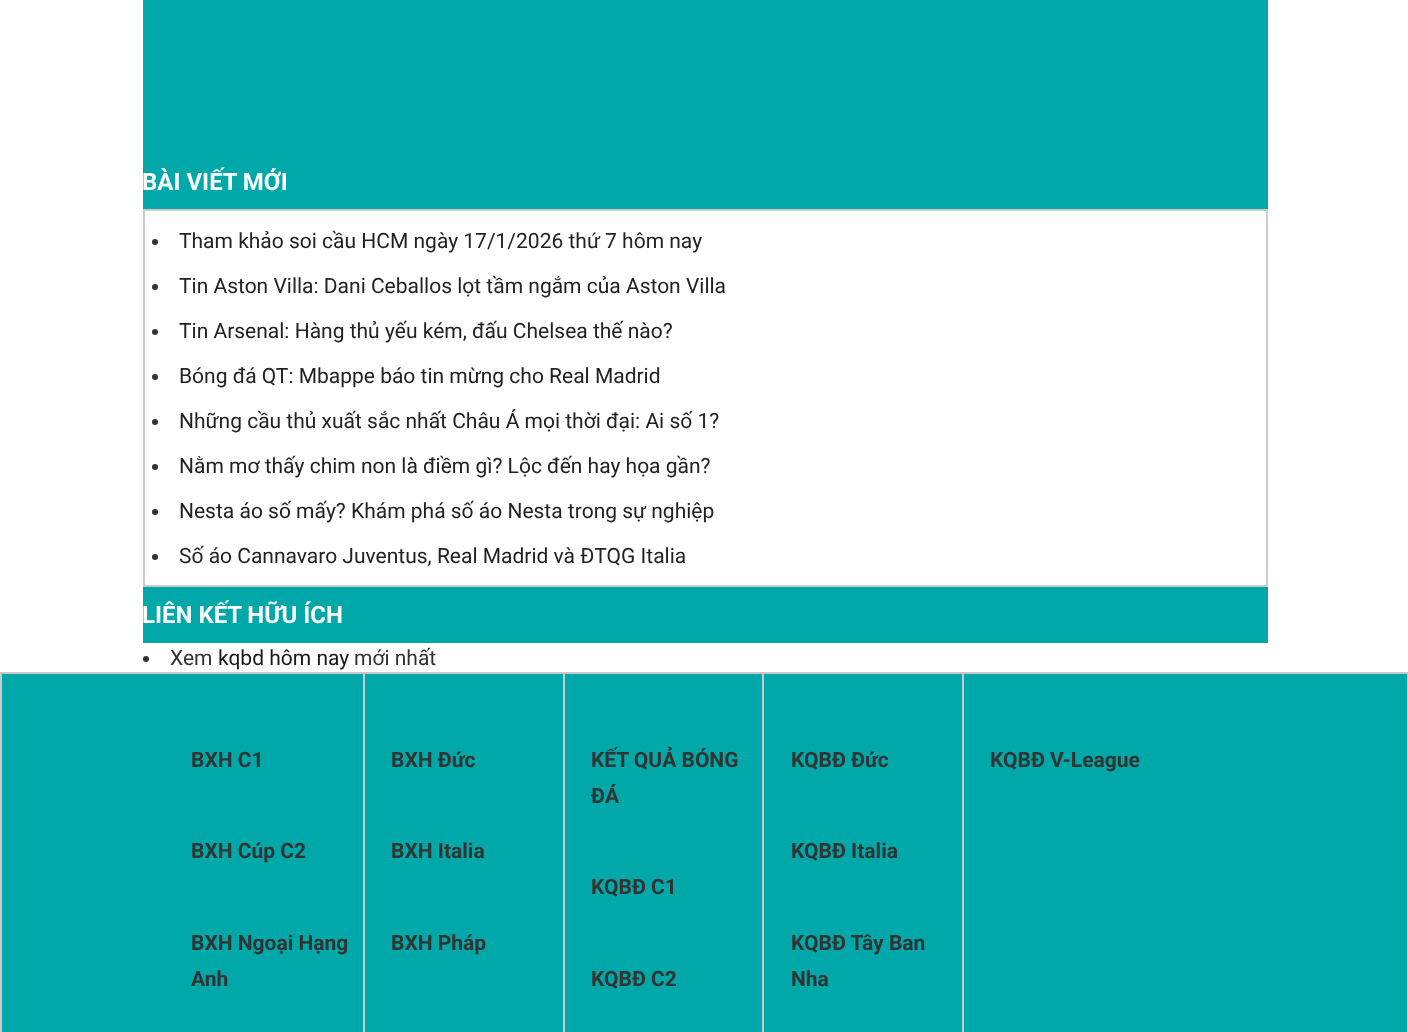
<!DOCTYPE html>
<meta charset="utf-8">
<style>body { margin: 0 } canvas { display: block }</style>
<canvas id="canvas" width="1408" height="1032"></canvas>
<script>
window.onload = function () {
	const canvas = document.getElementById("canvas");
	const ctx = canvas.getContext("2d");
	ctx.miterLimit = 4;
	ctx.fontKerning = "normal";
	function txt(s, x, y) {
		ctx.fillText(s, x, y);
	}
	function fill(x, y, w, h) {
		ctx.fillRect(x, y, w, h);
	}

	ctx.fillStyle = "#FFFFFF";
	fill(0, 0, 1408, 1032);
	ctx.fillStyle = "#00A8A9";
	fill(143, 0, 1125, 209);
	ctx.strokeStyle = "#CCCCCC";
	ctx.lineWidth = 2;
	ctx.strokeRect(144, 210, 1123, 376);
	ctx.fillStyle = "#333333";
	ctx.beginPath();
	ctx.arc(155, 242, 3, 0, Math.PI * 2);
	ctx.fill();
	ctx.beginPath();
	ctx.arc(155, 287, 3, 0, Math.PI * 2);
	ctx.fill();
	ctx.beginPath();
	ctx.arc(155, 332, 3, 0, Math.PI * 2);
	ctx.fill();
	ctx.beginPath();
	ctx.arc(155, 377, 3, 0, Math.PI * 2);
	ctx.fill();
	ctx.beginPath();
	ctx.arc(155, 422, 3, 0, Math.PI * 2);
	ctx.fill();
	ctx.beginPath();
	ctx.arc(155, 467, 3, 0, Math.PI * 2);
	ctx.fill();
	ctx.beginPath();
	ctx.arc(155, 512, 3, 0, Math.PI * 2);
	ctx.fill();
	ctx.beginPath();
	ctx.arc(155, 557, 3, 0, Math.PI * 2);
	ctx.fill();
	ctx.fillStyle = "#00A8A9";
	fill(143, 587, 1125, 56);
	ctx.fillStyle = "#333333";
	ctx.beginPath();
	ctx.arc(146, 659, 3, 0, Math.PI * 2);
	ctx.fill();
	ctx.fillStyle = "#00A8A9";
	ctx.beginPath();
	ctx.rect(1, 673, 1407, 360);
	ctx.fill();
	ctx.strokeStyle = "#C9C9C9";
	ctx.stroke();
	ctx.fillStyle = "#C9C9C9";
	fill(363, 674, 2, 358);
	fill(563, 674, 2, 358);
	fill(762, 674, 2, 358);
	fill(962, 674, 2, 358);
	ctx.font = "bold 24px Roboto";
	ctx.fillStyle = "#FFFFFF";
	txt("BÀI VIẾT MỚI", 142, 190);
	ctx.font = "21px Roboto";
	ctx.fillStyle = "#222222";
	txt("Tham khảo soi cầu HCM ngày 17/1/2026 thứ 7 hôm nay", 179, 248);
	txt("Tin Aston Villa: Dani Ceballos lọt tầm ngắm của Aston Villa", 179, 293);
	txt("Tin Arsenal: Hàng thủ yếu kém, đấu Chelsea thế nào?", 179, 338);
	txt("Bóng đá QT: Mbappe báo tin mừng cho Real Madrid", 179, 383);
	txt("Những cầu thủ xuất sắc nhất Châu Á mọi thời đại: Ai số 1?", 179, 428);
	txt("Nằm mơ thấy chim non là điềm gì? Lộc đến hay họa gần?", 179, 473);
	txt("Nesta áo số mấy? Khám phá số áo Nesta trong sự nghiệp", 179, 518);
	txt("Số áo Cannavaro Juventus, Real Madrid và ĐTQG Italia", 179, 563);
	ctx.font = "bold 24px Roboto";
	ctx.fillStyle = "#FFFFFF";
	txt("LIÊN KẾT HỮU ÍCH", 142, 623);
	ctx.font = "21px Roboto";
	ctx.fillStyle = "#333333";
	txt("Xem", 170, 665);
	ctx.fillStyle = "#191919";
	txt("kqbd hôm nay", 218, 665);
	ctx.fillStyle = "#333333";
	txt("mới nhất", 354, 665);
	ctx.font = "bold 21px Roboto";
	txt("BXH C1", 191, 767);
	txt("BXH Cúp C2", 191, 858);
	txt("BXH Ngoại Hạng", 191, 950);
	txt("Anh", 191, 986);
	txt("BXH Đức", 391, 767);
	txt("BXH Italia", 391, 858);
	txt("BXH Pháp", 391, 950);
	txt("KẾT QUẢ BÓNG", 591, 767);
	txt("ĐÁ", 591, 803);
	txt("KQBĐ C1", 591, 894);
	txt("KQBĐ C2", 591, 986);
	txt("KQBĐ Đức", 791, 767);
	txt("KQBĐ Italia", 791, 858);
	txt("KQBĐ Tây Ban", 791, 950);
	txt("Nha", 791, 986);
	txt("KQBĐ V-League", 990, 767);
};
</script>
